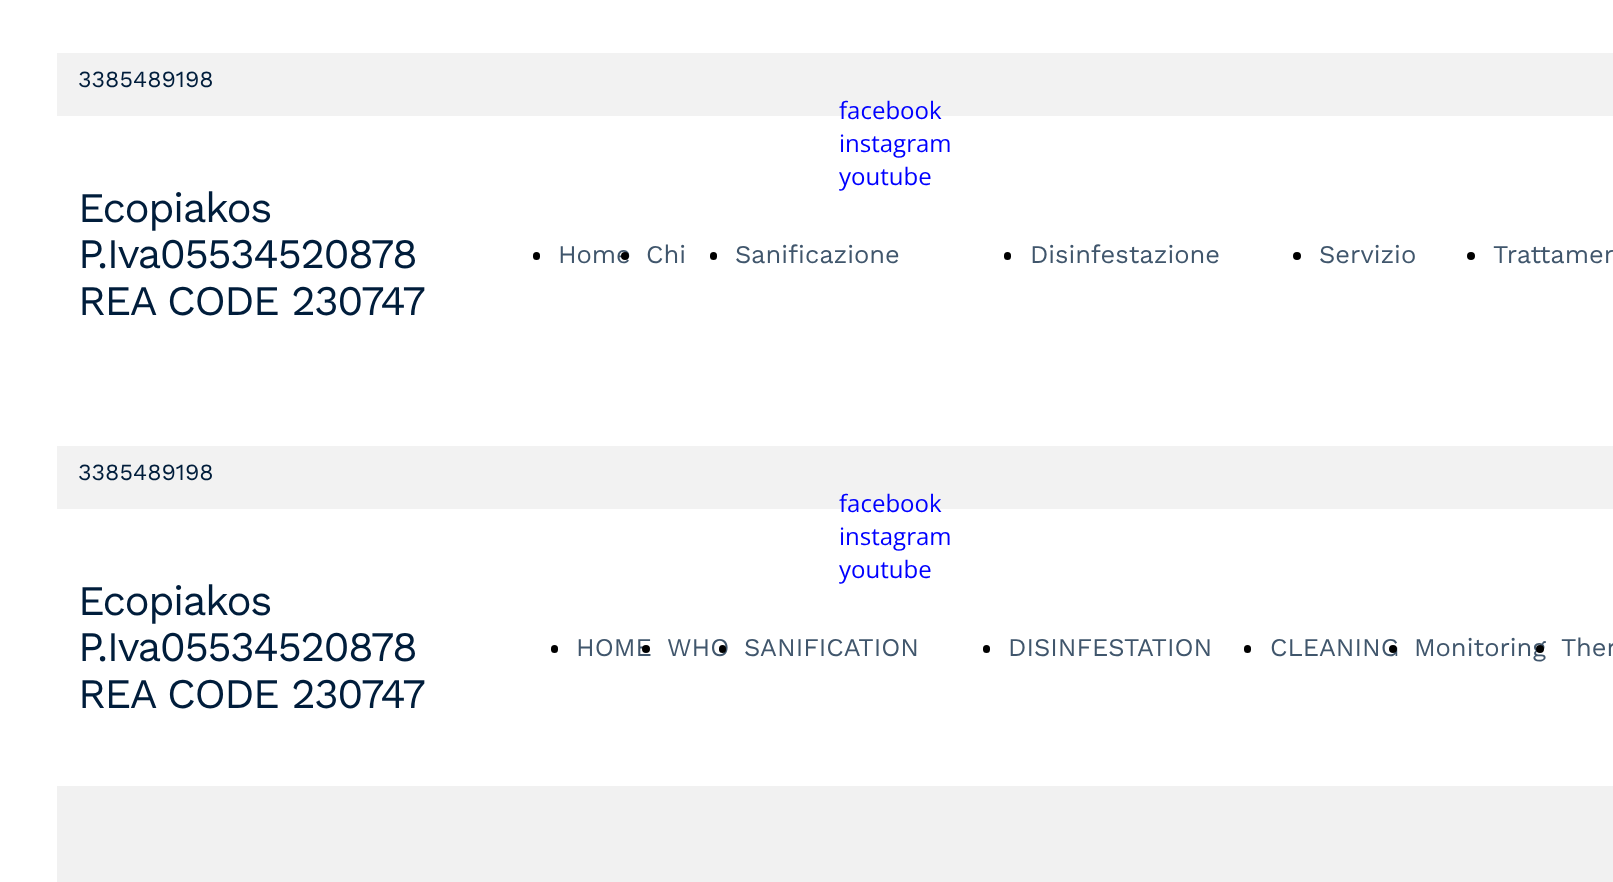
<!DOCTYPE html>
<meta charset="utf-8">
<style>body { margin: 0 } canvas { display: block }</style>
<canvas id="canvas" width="1613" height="882"></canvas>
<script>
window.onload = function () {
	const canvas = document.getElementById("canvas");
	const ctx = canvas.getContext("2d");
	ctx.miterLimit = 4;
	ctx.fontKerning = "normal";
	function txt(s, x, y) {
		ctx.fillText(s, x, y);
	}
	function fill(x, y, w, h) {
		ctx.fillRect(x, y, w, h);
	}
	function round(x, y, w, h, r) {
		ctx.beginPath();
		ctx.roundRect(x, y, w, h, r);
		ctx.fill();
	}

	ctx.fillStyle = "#FFFFFF";
	fill(0, 0, 1613, 882);
	ctx.fillStyle = "#F2F2F2";
	fill(57, 53, 1556, 63);
	ctx.fillStyle = "#000000";
	round(533, 252, 7, 8, 3.5);
	round(710, 252, 7, 8, 3.5);
	round(1004, 252, 7, 8, 3.5);
	ctx.beginPath();
	ctx.arc(1297, 256, 4, 0, Math.PI * 2);
	ctx.fill();
	ctx.beginPath();
	ctx.arc(1471, 256, 4, 0, Math.PI * 2);
	ctx.fill();
	ctx.fillStyle = "#F2F2F2";
	fill(57, 446, 1556, 63);
	ctx.fillStyle = "#000000";
	round(551, 645, 7, 8, 3.5);
	round(983, 645, 7, 8, 3.5);
	round(1244, 645, 7, 8, 3.5);
	ctx.fillStyle = "#F1F1F1";
	fill(57, 786, 1556, 96);
	ctx.font = "23.25px Work Sans";
	ctx.fillStyle = "#001D3B";
	txt("3385489198", 78, 87);
	ctx.font = "24px Open Sans";
	ctx.fillStyle = "#0000FF";
	txt("facebook", 839, 119);
	txt("instagram", 839, 152);
	txt("youtube", 839, 185);
	ctx.letterSpacing = "-1.5px";
	ctx.font = "42px Work Sans";
	ctx.fillStyle = "#001D3B";
	txt("Ecopiakos", 78, 222);
	txt("P.Iva05534520878", 78, 268);
	txt("REA CODE 230747", 78, 315);
	ctx.letterSpacing = "0px";
	ctx.font = "25.5px Work Sans";
	ctx.fillStyle = "#40566C";
	txt("Home", 558, 263);
	ctx.fillStyle = "#000000";
	ctx.beginPath();
	ctx.arc(625, 256, 4, 0, Math.PI * 2);
	ctx.fill();
	ctx.fillStyle = "#40566C";
	txt("Chi", 646, 263);
	txt("Sanificazione", 735, 263);
	txt("Disinfestazione", 1030, 263);
	txt("Servizio", 1319, 263);
	txt("Trattamen", 1493, 263);
	ctx.font = "23.25px Work Sans";
	ctx.fillStyle = "#001D3B";
	txt("3385489198", 78, 480);
	ctx.font = "24px Open Sans";
	ctx.fillStyle = "#0000FF";
	txt("facebook", 839, 512);
	txt("instagram", 839, 545);
	txt("youtube", 839, 578);
	ctx.letterSpacing = "-1.5px";
	ctx.font = "42px Work Sans";
	ctx.fillStyle = "#001D3B";
	txt("Ecopiakos", 78, 615);
	txt("P.Iva05534520878", 78, 661);
	txt("REA CODE 230747", 78, 708);
	ctx.letterSpacing = "0px";
	ctx.font = "25.5px Work Sans";
	ctx.fillStyle = "#40566C";
	txt("HOME", 576, 656);
	ctx.fillStyle = "#000000";
	ctx.beginPath();
	ctx.arc(646, 649, 4, 0, Math.PI * 2);
	ctx.fill();
	ctx.fillStyle = "#40566C";
	txt("WHO", 667, 656);
	ctx.fillStyle = "#000000";
	round(719, 645, 7, 8, 3.5);
	ctx.fillStyle = "#40566C";
	txt("SANIFICATION", 744, 656);
	txt("DISINFESTATION", 1008, 656);
	txt("CLEANING", 1270, 656);
	ctx.fillStyle = "#000000";
	ctx.beginPath();
	ctx.arc(1393, 649, 4, 0, Math.PI * 2);
	ctx.fill();
	ctx.fillStyle = "#40566C";
	txt("Monitoring", 1414, 656);
	ctx.fillStyle = "#000000";
	ctx.beginPath();
	ctx.arc(1540, 649, 4, 0, Math.PI * 2);
	ctx.fill();
	ctx.fillStyle = "#40566C";
	txt("Ther", 1561, 656);
};
</script>
